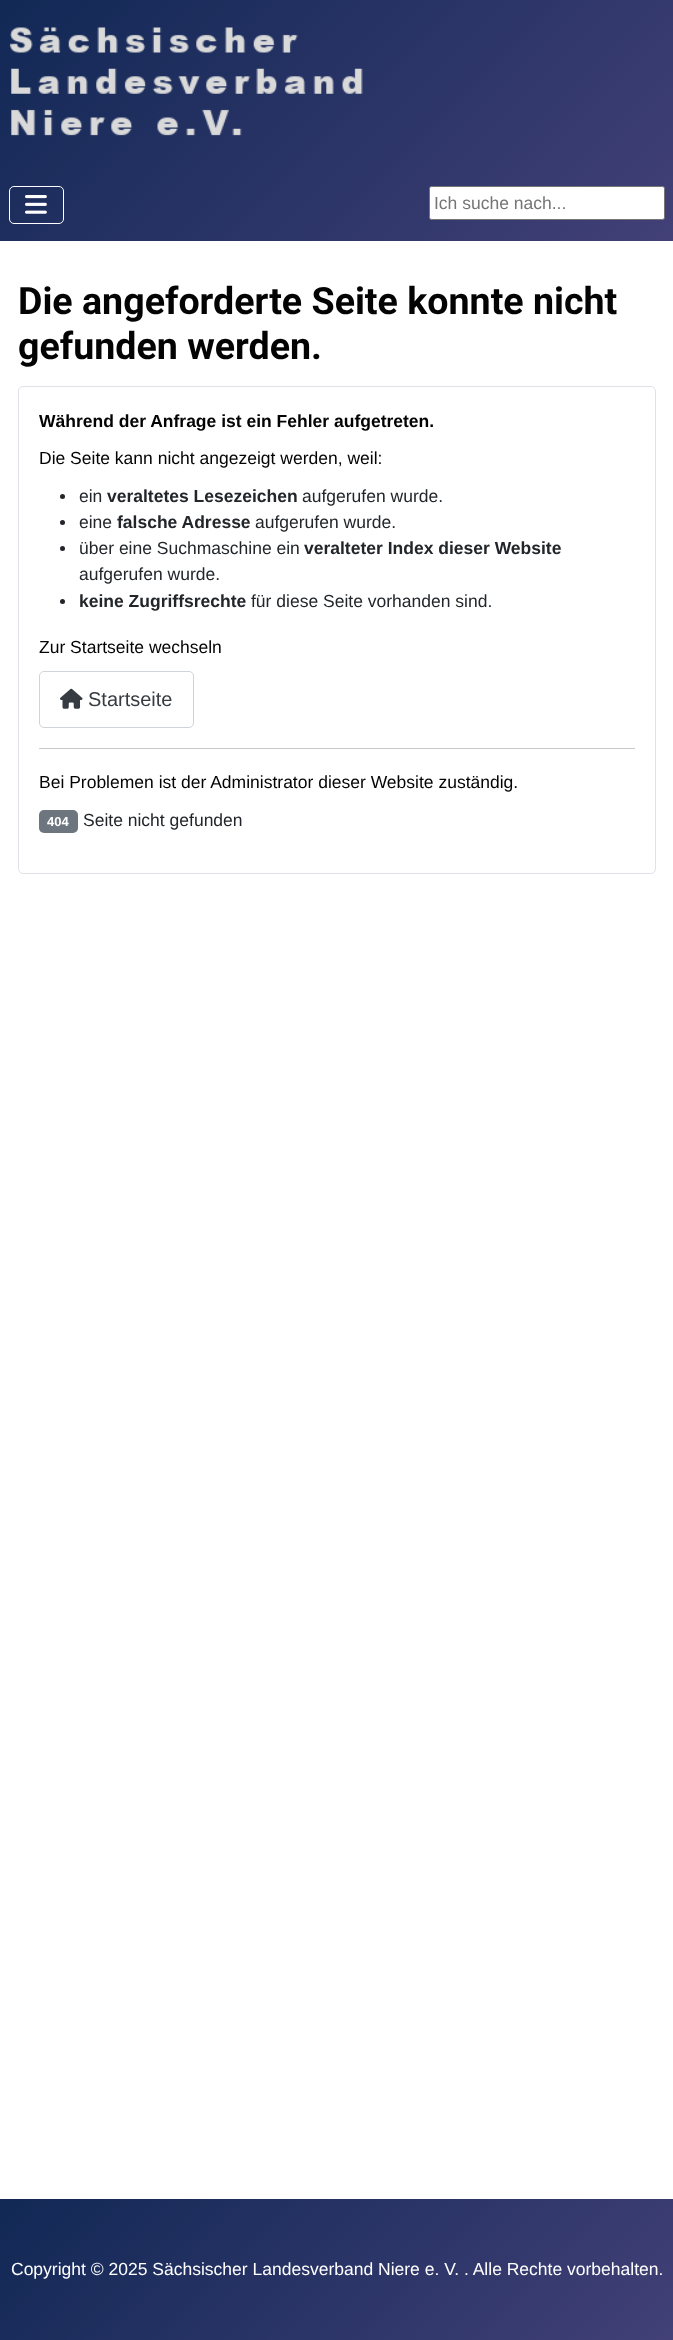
<!DOCTYPE html>
<meta charset="utf-8">
<style>body { margin: 0 } canvas { display: block }</style>
<canvas id="canvas" width="673" height="2340"></canvas>
<img id="img1" src="img_01.png" hidden>
<img id="img2" src="img_02.png" hidden>
<img id="img3" src="img_03.png" hidden>
<script>
window.onload = function () {
	const canvas = document.getElementById("canvas");
	const ctx = canvas.getContext("2d");
	ctx.miterLimit = 4;
	ctx.fontKerning = "normal";
	function txt(s, x, y) {
		ctx.fillText(s, x, y);
	}
	function fill(x, y, w, h) {
		ctx.fillRect(x, y, w, h);
	}
	function round(x, y, w, h, r) {
		ctx.beginPath();
		ctx.roundRect(x, y, w, h, r);
		ctx.fill();
	}
	function img(id, x, y, w, h) {
		ctx.drawImage(document.getElementById(id), x, y, w, h);
	}
	let gradient;

	ctx.fillStyle = "#FFFFFF";
	fill(0, 0, 673, 2340);
	gradient = ctx.createLinearGradient(108, -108, 566, 349);
	gradient.addColorStop(0, "#112855");
	gradient.addColorStop(1, "#424077");
	ctx.fillStyle = gradient;
	fill(0, 0, 673, 241);
	img("img1", 9, 27, 354, 109);
	ctx.beginPath();
	ctx.roundRect(9.5, 186.5, 54, 37, 4.5);
	ctx.strokeStyle = "#FFFFFF";
	ctx.stroke();
	img("img2", 25, 195, 22, 19);
	ctx.fillStyle = "#FFFFFF";
	ctx.beginPath();
	ctx.roundRect(429.5, 186.5, 235, 33, 2);
	ctx.fill();
	ctx.strokeStyle = "#767676";
	ctx.stroke();
	ctx.beginPath();
	ctx.roundRect(18.5, 386.5, 637, 487, 4.5);
	ctx.strokeStyle = "#DFE3E7";
	ctx.stroke();
	ctx.fillStyle = "#22262A";
	ctx.beginPath();
	ctx.arc(62.5, 496.5, 2.5, 0, Math.PI * 2);
	ctx.fill();
	ctx.beginPath();
	ctx.arc(62.5, 522.5, 2.5, 0, Math.PI * 2);
	ctx.fill();
	ctx.beginPath();
	ctx.arc(62.5, 548.5, 2.5, 0, Math.PI * 2);
	ctx.fill();
	ctx.beginPath();
	ctx.arc(62.5, 601.5, 2.5, 0, Math.PI * 2);
	ctx.fill();
	ctx.beginPath();
	ctx.roundRect(39.5, 671.5, 154, 56, 4.5);
	ctx.strokeStyle = "#CED4DA";
	ctx.stroke();
	img("img3", 60, 688, 23, 21);
	ctx.fillStyle = "#C8C9CA";
	fill(39, 748, 596, 1);
	ctx.fillStyle = "#6D757E";
	round(39, 810, 39, 23, 5);
	gradient = ctx.createLinearGradient(133, 2066, 541, 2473);
	gradient.addColorStop(0, "#112855");
	gradient.addColorStop(1, "#424077");
	ctx.fillStyle = gradient;
	fill(0, 2199, 673, 141);
	ctx.font = "17.5px Liberation Sans";
	ctx.fillStyle = "#757575";
	txt("Ich suche nach...", 434, 209);
	ctx.font = "bold 37.6px Roboto";
	ctx.fillStyle = "#030303";
	txt("Die angeforderte Seite konnte nicht", 18, 314);
	txt("gefunden werden.", 18, 359);
	ctx.font = "bold 17.5px Liberation Sans";
	txt("Während der Anfrage ist ein Fehler aufgetreten.", 39, 427);
	ctx.font = "17.5px Liberation Sans";
	txt("Die Seite kann nicht angezeigt werden, weil:", 39, 464);
	ctx.fillStyle = "#22262A";
	txt("ein", 79, 502);
	ctx.font = "bold 17.5px Liberation Sans";
	txt("veraltetes Lesezeichen", 107, 502);
	ctx.font = "17.5px Liberation Sans";
	txt("aufgerufen wurde.", 302, 502);
	txt("eine", 79, 528);
	ctx.font = "bold 17.5px Liberation Sans";
	txt("falsche Adresse", 117, 528);
	ctx.font = "17.5px Liberation Sans";
	txt("aufgerufen wurde.", 255, 528);
	txt("über eine Suchmaschine ein", 79, 554);
	ctx.font = "bold 17.5px Liberation Sans";
	txt("veralteter Index dieser Website", 304, 554);
	ctx.font = "17.5px Liberation Sans";
	txt("aufgerufen wurde.", 79, 580);
	ctx.font = "bold 17.5px Liberation Sans";
	txt("keine Zugriffsrechte", 79, 607);
	ctx.font = "17.5px Liberation Sans";
	txt("für diese Seite vorhanden sind.", 251, 607);
	ctx.fillStyle = "#030303";
	txt("Zur Startseite wechseln", 39, 653);
	ctx.font = "20px Liberation Sans";
	ctx.fillStyle = "#353B41";
	txt("Startseite", 88, 706);
	ctx.font = "17.5px Liberation Sans";
	ctx.fillStyle = "#030303";
	txt("Bei Problemen ist der Administrator dieser Website zuständig.", 39, 788);
	ctx.font = "bold 13px Liberation Sans";
	ctx.fillStyle = "#FFFFFF";
	txt("404", 47, 826);
	ctx.font = "17.5px Liberation Sans";
	ctx.fillStyle = "#22262A";
	txt("Seite nicht gefunden", 83, 826);
	ctx.fillStyle = "#FFFFFF";
	txt("Copyright © 2025 Sächsischer Landesverband Niere e. V. . Alle Rechte vorbehalten.", 11, 2275);
};
</script>
